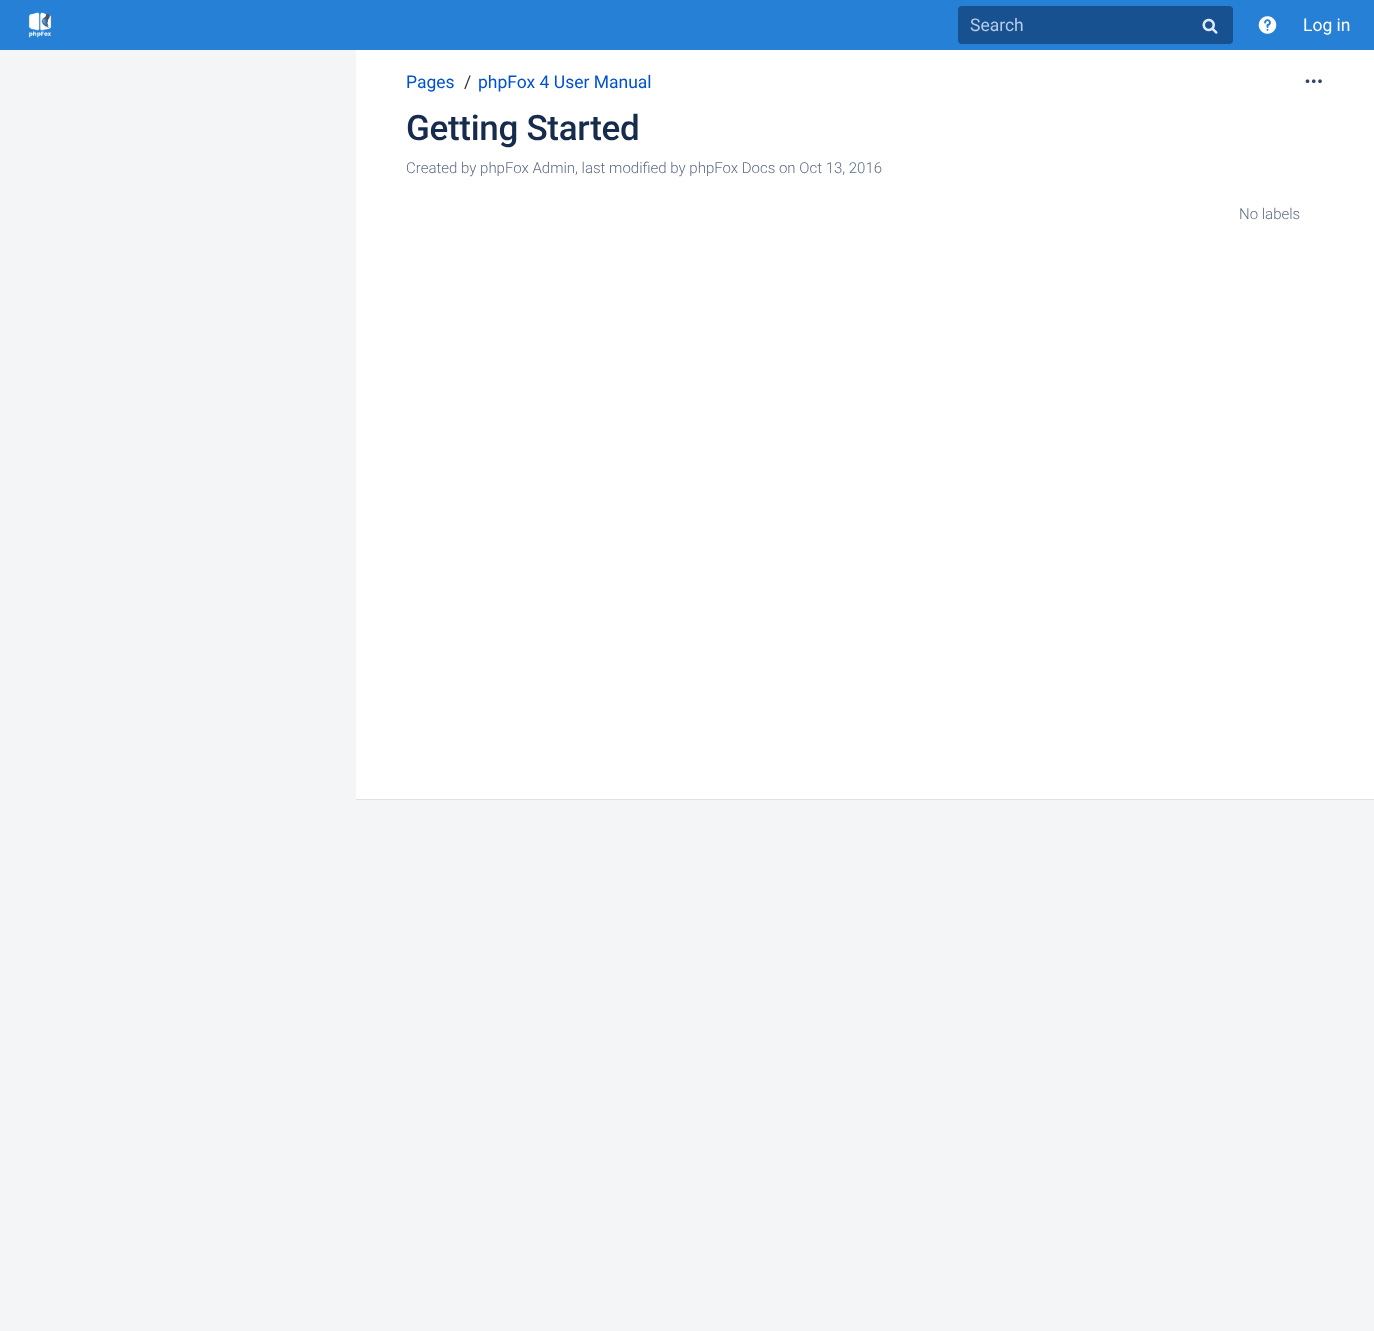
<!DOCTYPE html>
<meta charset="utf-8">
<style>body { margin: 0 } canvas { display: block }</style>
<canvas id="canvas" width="1374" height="1331"></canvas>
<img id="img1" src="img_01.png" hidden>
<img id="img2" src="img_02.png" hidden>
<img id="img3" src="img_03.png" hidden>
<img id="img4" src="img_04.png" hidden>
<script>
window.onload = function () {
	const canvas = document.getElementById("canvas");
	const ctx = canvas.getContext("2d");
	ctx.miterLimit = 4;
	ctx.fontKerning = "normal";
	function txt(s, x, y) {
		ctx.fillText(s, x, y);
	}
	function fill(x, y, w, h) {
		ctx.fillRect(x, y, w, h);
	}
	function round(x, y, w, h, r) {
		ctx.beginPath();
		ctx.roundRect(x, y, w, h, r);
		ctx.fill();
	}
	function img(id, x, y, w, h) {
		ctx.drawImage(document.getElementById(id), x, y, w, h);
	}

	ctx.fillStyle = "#F4F5F7";
	fill(0, 0, 1374, 1331);
	ctx.fillStyle = "#2680D6";
	fill(0, 0, 1374, 50);
	img("img1", 28, 12, 24, 26);
	ctx.fillStyle = "#18518F";
	round(958, 6, 275, 38, 4);
	img("img2", 1202, 18, 16, 16);
	img("img3", 1258, 16, 19, 18);
	ctx.fillStyle = "#FFFFFF";
	fill(356, 50, 1018, 749);
	ctx.fillStyle = "#DFE1E6";
	fill(356, 799, 1018, 1);
	img("img4", 1305, 79, 17, 5);
	ctx.font = "17.5px Roboto";
	ctx.fillStyle = "#B6CCE9";
	txt("Search", 970, 31);
	ctx.fillStyle = "#FFFFFF";
	txt("Log in", 1303, 31);
	ctx.fillStyle = "#0052CC";
	txt("Pages", 406, 88);
	ctx.fillStyle = "#333333";
	txt("/", 464, 88);
	ctx.fillStyle = "#0052CC";
	txt("phpFox 4 User Manual", 478, 88);
	ctx.letterSpacing = "-0.3px";
	ctx.font = "500 35px Roboto";
	ctx.fillStyle = "#172B4D";
	txt("Getting Started", 406, 140);
	ctx.letterSpacing = "0px";
	ctx.font = "300 15px Roboto";
	ctx.fillStyle = "#5E6C84";
	txt("Created by phpFox Admin, last modified by phpFox Docs on Oct 13, 2016", 406, 173);
	txt("No labels", 1239, 219);
};
</script>
